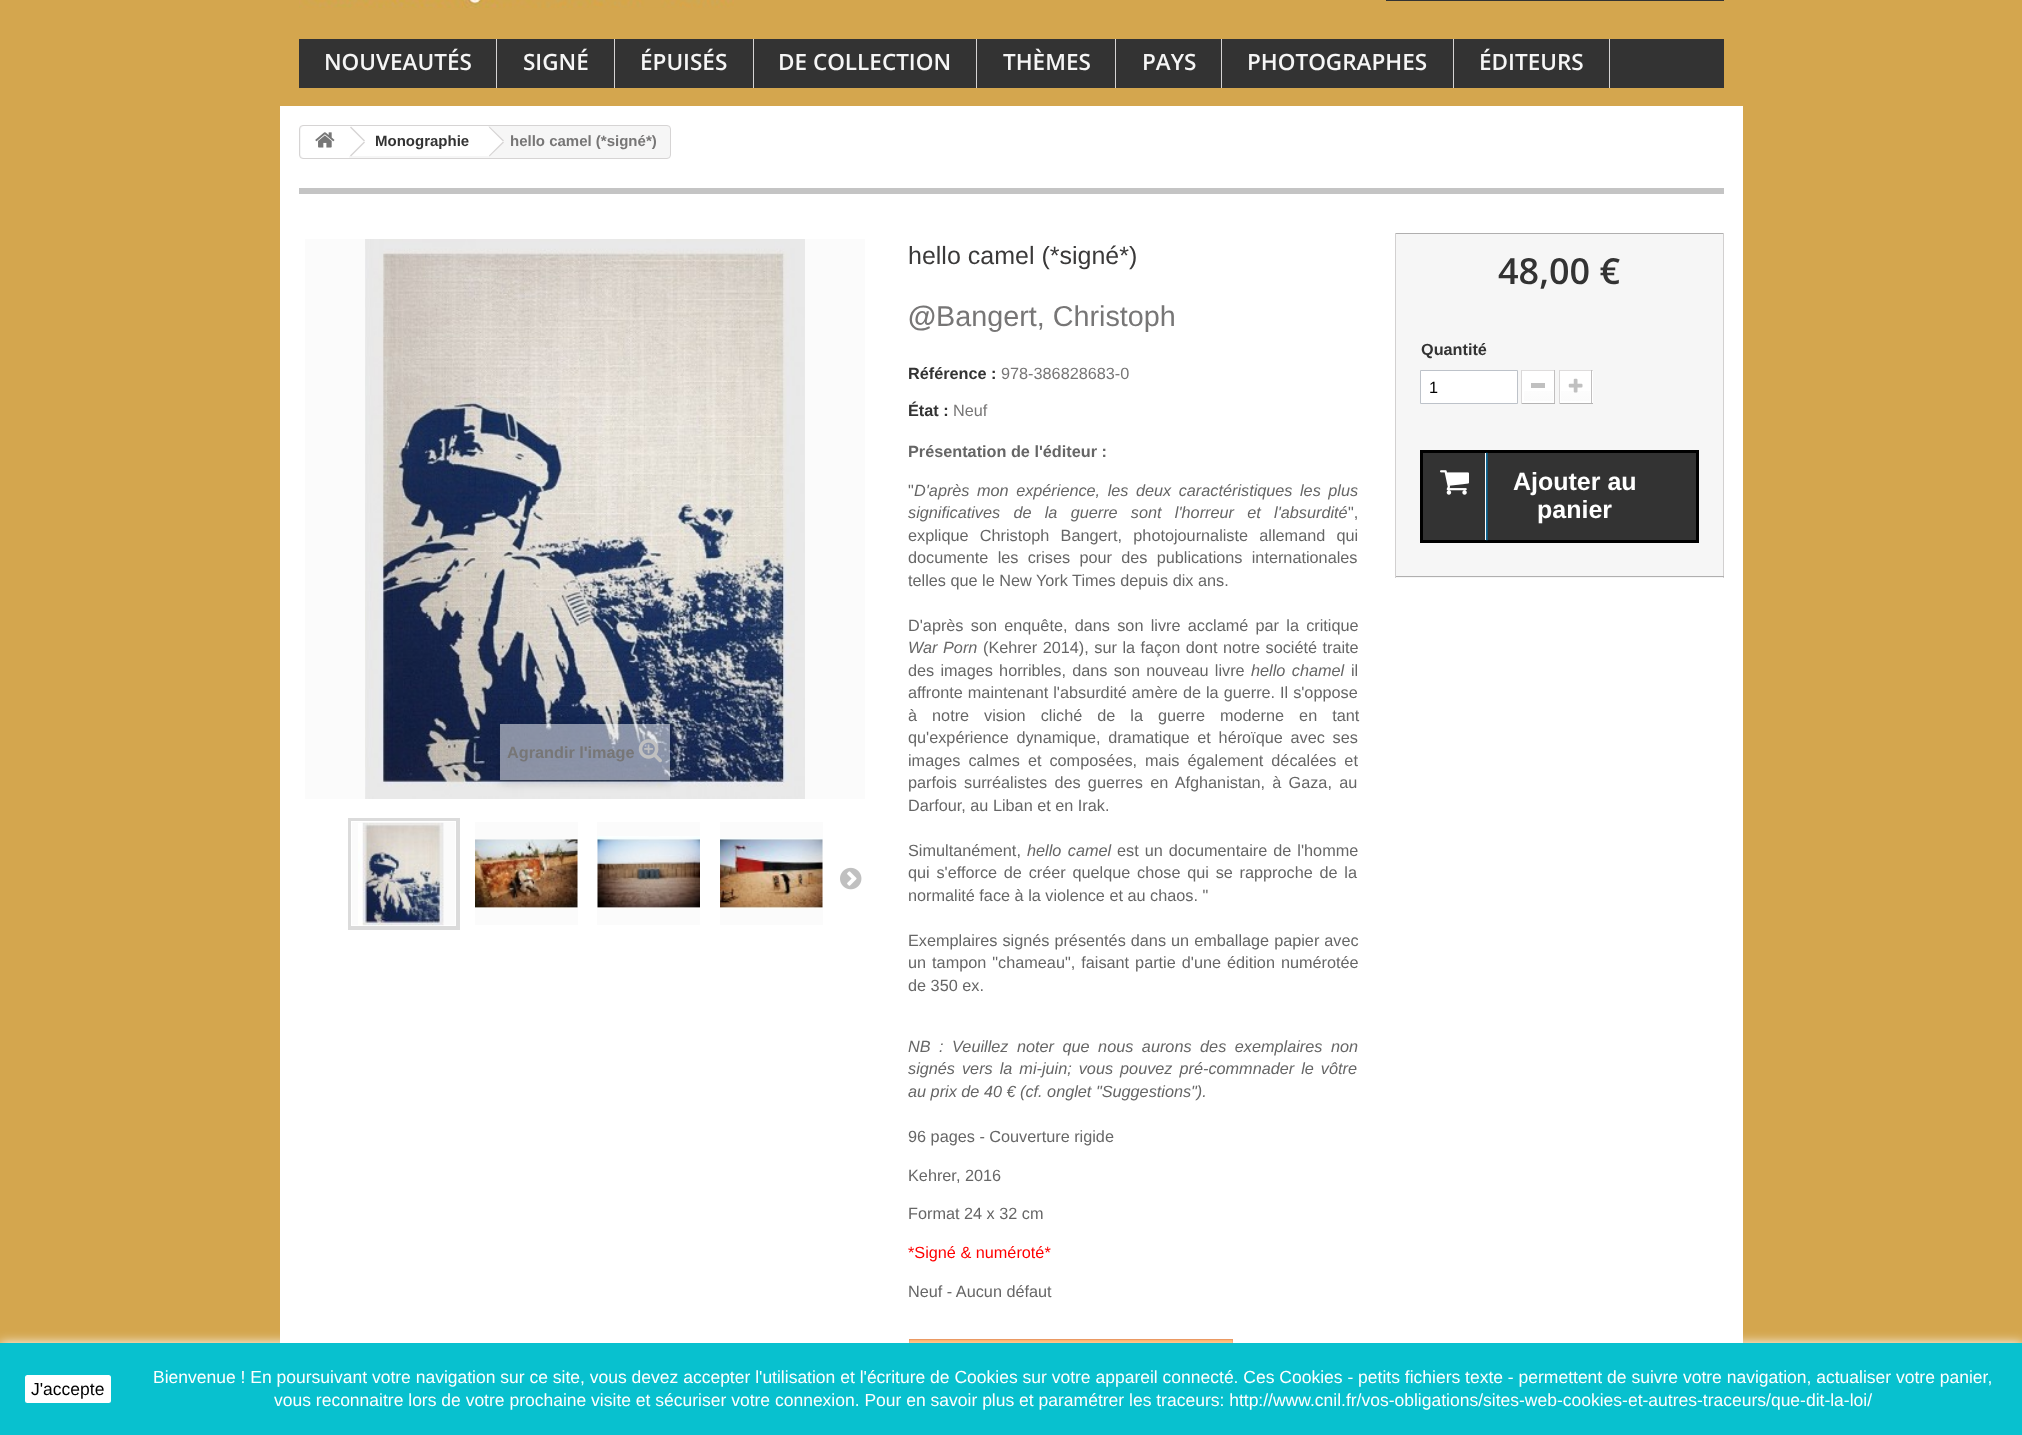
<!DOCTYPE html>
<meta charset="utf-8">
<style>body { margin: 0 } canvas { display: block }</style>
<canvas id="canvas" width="2022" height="1435"></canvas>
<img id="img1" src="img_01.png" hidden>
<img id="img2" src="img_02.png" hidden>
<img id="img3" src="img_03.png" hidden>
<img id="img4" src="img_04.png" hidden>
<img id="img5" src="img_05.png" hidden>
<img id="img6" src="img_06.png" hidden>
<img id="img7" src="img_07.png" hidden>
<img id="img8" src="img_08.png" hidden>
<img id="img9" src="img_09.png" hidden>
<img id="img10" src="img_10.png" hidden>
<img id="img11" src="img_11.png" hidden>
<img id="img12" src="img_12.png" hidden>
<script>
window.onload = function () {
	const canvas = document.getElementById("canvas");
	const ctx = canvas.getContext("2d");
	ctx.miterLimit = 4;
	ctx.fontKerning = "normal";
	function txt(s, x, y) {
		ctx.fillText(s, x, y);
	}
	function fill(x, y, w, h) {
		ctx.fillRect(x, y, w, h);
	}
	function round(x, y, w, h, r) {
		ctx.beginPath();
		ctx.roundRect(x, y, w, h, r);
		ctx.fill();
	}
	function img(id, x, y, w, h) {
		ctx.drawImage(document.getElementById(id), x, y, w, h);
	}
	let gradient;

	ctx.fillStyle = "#D4A64E";
	fill(0, 0, 2022, 1435);
	img("img1", 299, 0, 435, 8);
	ctx.fillStyle = "#333333";
	fill(1386, 0, 338, 1);
	fill(299, 39, 1425, 49);
	ctx.fillStyle = "#D6D4D4";
	fill(496, 39, 1, 49);
	fill(614, 39, 1, 49);
	fill(753, 39, 1, 49);
	fill(976, 39, 1, 49);
	fill(1115, 39, 1, 49);
	fill(1221, 39, 1, 49);
	fill(1453, 39, 1, 49);
	fill(1609, 39, 1, 49);
	ctx.fillStyle = "#FFFFFF";
	fill(280, 106, 1463, 1237);
	ctx.fillStyle = "#F6F6F6";
	ctx.beginPath();
	ctx.roundRect(299.5, 125.5, 371, 33, 3.5);
	ctx.fill();
	ctx.strokeStyle = "#D6D4D4";
	ctx.stroke();
	ctx.fillStyle = "#FFFFFF";
	ctx.beginPath();
	ctx.roundRect(301, 126, 48, 32, [4, 0, 0, 4]);
	ctx.fill();
	img("img2", 315, 132, 20, 16);
	fill(349, 126, 139, 30);
	ctx.fillStyle = "#D6D4D4";
	ctx.beginPath();
	ctx.moveTo(351, 126.5);
	ctx.lineTo(365, 140.5);
	ctx.lineTo(364, 141.5);
	ctx.lineTo(350, 127.5);
	ctx.closePath();
	ctx.fill();
	ctx.beginPath();
	ctx.moveTo(364, 141.5);
	ctx.lineTo(365, 142.5);
	ctx.lineTo(351, 156.5);
	ctx.lineTo(350, 155.5);
	ctx.closePath();
	ctx.fill();
	ctx.fillStyle = "#FFFFFF";
	ctx.beginPath();
	ctx.moveTo(490.5, 127.5);
	ctx.lineTo(503, 139.5);
	ctx.bezierCurveTo(504, 140.5, 504, 142, 503, 143);
	ctx.lineTo(490.5, 155.5);
	ctx.bezierCurveTo(489.5, 156.5, 488, 156.5, 487, 155.5);
	ctx.lineTo(474.5, 143);
	ctx.bezierCurveTo(473.5, 142, 473.5, 140.5, 474.5, 139.5);
	ctx.lineTo(487, 127.5);
	ctx.bezierCurveTo(488, 126.5, 489.5, 126.5, 490.5, 127.5);
	ctx.closePath();
	ctx.fill();
	ctx.fillStyle = "#D6D4D4";
	ctx.beginPath();
	ctx.moveTo(489.5, 126.5);
	ctx.lineTo(504, 140.5);
	ctx.lineTo(503, 141.5);
	ctx.lineTo(489, 127.5);
	ctx.closePath();
	ctx.fill();
	ctx.beginPath();
	ctx.moveTo(503, 141.5);
	ctx.lineTo(504, 142.5);
	ctx.lineTo(489.5, 156.5);
	ctx.lineTo(489, 155.5);
	ctx.closePath();
	ctx.fill();
	ctx.fillStyle = "#C4C4C4";
	fill(299, 188, 1425, 6);
	ctx.fillStyle = "#FE9126";
	fill(910, 1340, 322, 3);
	ctx.strokeStyle = "#E4752B";
	ctx.strokeRect(909.5, 1339.5, 323, 33);
	ctx.fillStyle = "#F6F6F6";
	fill(1396, 234, 327, 344);
	ctx.fillStyle = "#B0AFAF";
	fill(1395, 233, 329, 1);
	ctx.fillStyle = "#D2D0D0";
	fill(1723, 233, 1, 345);
	ctx.fillStyle = "#B0AFAF";
	fill(1395, 576, 329, 1);
	ctx.fillStyle = "#D2D0D0";
	fill(1395, 233, 1, 345);
	ctx.fillStyle = "#FFFFFF";
	ctx.beginPath();
	ctx.rect(1420.5, 370.5, 97, 33);
	ctx.fill();
	ctx.strokeStyle = "#BDC2C9";
	ctx.stroke();
	fill(1522, 371, 31, 32);
	ctx.fillStyle = "#DEDCDC";
	fill(1521, 370, 34, 1);
	ctx.fillStyle = "#C1BFBF";
	fill(1554, 370, 1, 34);
	ctx.fillStyle = "#B5B4B4";
	fill(1521, 403, 34, 1);
	ctx.fillStyle = "#DAD8D8";
	fill(1521, 370, 1, 34);
	gradient = ctx.createLinearGradient(1538, 373, 1538, 401);
	gradient.addColorStop(0, "#FFFFFF");
	gradient.addColorStop(1, "#FBFBFB");
	ctx.fillStyle = gradient;
	fill(1524, 391, 29, 10);
	ctx.strokeStyle = "#FFFFFF";
	ctx.strokeRect(1523.5, 371.5, 30, 31);
	ctx.fillStyle = "#C0C0C0";
	fill(1531, 383, 14, 5);
	ctx.fillStyle = "#FFFFFF";
	fill(1561, 371, 32, 32);
	ctx.fillStyle = "#DEDCDC";
	fill(1559, 370, 34, 1);
	ctx.fillStyle = "#C1BFBF";
	fill(1591, 370, 1, 34);
	ctx.fillStyle = "#B5B4B4";
	fill(1559, 403, 34, 1);
	ctx.fillStyle = "#DAD8D8";
	fill(1559, 370, 1, 34);
	gradient = ctx.createLinearGradient(1576, 373, 1576, 401);
	gradient.addColorStop(0, "#FFFFFF");
	gradient.addColorStop(1, "#FBFBFB");
	ctx.fillStyle = gradient;
	fill(1561, 391, 29, 10);
	ctx.strokeRect(1560.5, 371.5, 30, 31);
	img("img3", 1568, 378, 15, 15);
	ctx.fillStyle = "#333333";
	ctx.beginPath();
	ctx.rect(1421.5, 451.5, 276, 90);
	ctx.fill();
	ctx.strokeStyle = "#000000";
	ctx.lineWidth = 3;
	ctx.stroke();
	ctx.fillStyle = "#FFFFFF";
	fill(1485, 453, 1, 87);
	img("img4", 1440, 470, 29, 25);
	img("img5", 1486, 452, 2, 89);
	ctx.fillStyle = "#FBFBFB";
	fill(305, 239, 560, 560);
	img("img6", 365, 239, 440, 560);
	ctx.save();
	ctx.beginPath();
	ctx.moveTo(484, 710);
	ctx.lineTo(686, 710);
	ctx.lineTo(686, 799);
	ctx.lineTo(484, 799);
	ctx.closePath();
	ctx.moveTo(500, 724);
	ctx.lineTo(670, 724);
	ctx.lineTo(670, 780);
	ctx.lineTo(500, 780);
	ctx.closePath();
	ctx.clip("evenodd");
	ctx.fillStyle = "rgba(0, 0, 0, 0.16)";
	ctx.filter = "blur(5px)";
	ctx.beginPath();
	ctx.rect(500, 726, 170, 57);
	ctx.fill();
	ctx.filter = "none";
	ctx.restore();
	ctx.fillStyle = "rgba(255, 255, 255, 0.5)";
	fill(500, 724, 170, 56);
	img("img7", 638, 739, 24, 24);
	ctx.fillStyle = "#FBFBFB";
	fill(352, 822, 103, 103);
	ctx.strokeStyle = "#DBDBDB";
	ctx.lineWidth = 4;
	ctx.strokeRect(350, 820, 108, 108);
	ctx.strokeStyle = "#FFFFFF";
	ctx.lineWidth = 1;
	ctx.strokeRect(351.5, 821.5, 104, 104);
	img("img8", 358, 822, 86, 104);
	fill(475, 822, 103, 103);
	img("img9", 475, 839, 103, 70);
	fill(597, 822, 103, 103);
	img("img10", 597, 836, 103, 73);
	fill(720, 822, 103, 103);
	img("img11", 720, 838, 103, 71);
	img("img12", 840, 867, 22, 23);
	ctx.fillStyle = "#FFFFFF";
	ctx.filter = "blur(6px)";
	ctx.beginPath();
	ctx.rect(0, 1343, 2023, 92);
	ctx.fill();
	ctx.filter = "none";
	ctx.fillStyle = "#08C1CF";
	fill(0, 1343, 2022, 92);
	ctx.fillStyle = "#FFFFFF";
	round(25, 1375, 86, 28, 2.5);
	ctx.font = "600 22.5px Open Sans";
	ctx.fillStyle = "#F6F6F6";
	txt("NOUVEAUTÉS", 324, 70);
	txt("SIGNÉ", 523, 70);
	txt("ÉPUISÉS", 640, 70);
	txt("DE COLLECTION", 778, 70);
	txt("THÈMES", 1003, 70);
	txt("PAYS", 1142, 70);
	txt("PHOTOGRAPHES", 1247, 70);
	txt("ÉDITEURS", 1479, 70);
	ctx.font = "bold 15px Liberation Sans";
	ctx.fillStyle = "#333333";
	txt("Monographie", 375, 146);
	ctx.fillStyle = "#777676";
	txt("hello camel (*signé*)", 510, 146);
	ctx.font = "25px Liberation Sans";
	ctx.fillStyle = "#3A3939";
	txt("hello camel (*signé*)", 908, 264);
	ctx.font = "bold 28.75px Liberation Sans";
	ctx.fillStyle = "#777676";
	txt("@", 908, 326);
	ctx.font = "28.75px Liberation Sans";
	txt("Bangert, Christoph", 936, 326);
	ctx.font = "bold 16.25px Liberation Sans";
	ctx.fillStyle = "#333333";
	txt("Référence :", 908, 379);
	ctx.font = "16.25px Liberation Sans";
	ctx.fillStyle = "#777676";
	txt("978-386828683-0", 1001, 379);
	ctx.font = "bold 16.25px Liberation Sans";
	ctx.fillStyle = "#333333";
	txt("État :", 908, 416);
	ctx.font = "16.25px Liberation Sans";
	ctx.fillStyle = "#777676";
	txt("Neuf", 953, 416);
	ctx.font = "bold 16.25px Liberation Sans";
	ctx.fillStyle = "#666666";
	txt("Présentation de l'éditeur :", 908, 457);
	ctx.font = "16.25px Liberation Sans";
	txt("\"", 908, 496);
	ctx.wordSpacing = "3px";
	ctx.font = "italic 16.25px Liberation Sans";
	txt("D'après mon expérience, les deux caractéristiques les plus", 914, 496);
	ctx.wordSpacing = "8.75px";
	txt("significatives de la guerre sont l'horreur et l'absurdité", 908, 518);
	ctx.wordSpacing = "0px";
	ctx.font = "16.25px Liberation Sans";
	txt("\",", 1348, 518);
	ctx.wordSpacing = "6.75px";
	txt("explique Christoph Bangert, photojournaliste allemand qui", 908, 541);
	ctx.wordSpacing = "4.75px";
	txt("documente les crises pour des publications internationales", 908, 563);
	ctx.wordSpacing = "0px";
	txt("telles que le New York Times depuis dix ans.", 908, 586);
	ctx.wordSpacing = "2.75px";
	txt("D'après son enquête, dans son livre acclamé par la critique", 908, 631);
	ctx.wordSpacing = "1px";
	ctx.font = "italic 16.25px Liberation Sans";
	txt("War Porn", 908, 653);
	ctx.font = "16.25px Liberation Sans";
	txt("(Kehrer 2014), sur la façon dont notre société traite", 983, 653);
	ctx.wordSpacing = "1.75px";
	txt("des images horribles, dans son nouveau livre", 908, 676);
	ctx.wordSpacing = "2px";
	ctx.font = "italic 16.25px Liberation Sans";
	txt("hello chamel", 1251, 676);
	ctx.wordSpacing = "0px";
	ctx.font = "16.25px Liberation Sans";
	txt("il", 1351, 676);
	ctx.wordSpacing = "0.5px";
	txt("affronte maintenant l'absurdité amère de la guerre.", 908, 698);
	txt("Il s'oppose", 1280, 698);
	ctx.wordSpacing = "10.5px";
	txt("à notre vision cliché de la guerre moderne en tant", 908, 721);
	ctx.wordSpacing = "3.25px";
	txt("qu'expérience dynamique, dramatique et héroïque avec ses", 908, 743);
	ctx.wordSpacing = "3.5px";
	txt("images calmes et composées, mais également décalées et", 908, 766);
	ctx.wordSpacing = "2.75px";
	txt("parfois surréalistes des guerres en Afghanistan, à Gaza, au", 908, 788);
	ctx.wordSpacing = "0px";
	txt("Darfour, au Liban et en Irak.", 908, 811);
	txt("Simultanément,", 908, 856);
	ctx.wordSpacing = "2px";
	ctx.font = "italic 16.25px Liberation Sans";
	txt("hello camel", 1027, 856);
	ctx.wordSpacing = "1.5px";
	ctx.font = "16.25px Liberation Sans";
	txt("est un documentaire de l'homme", 1117, 856);
	ctx.wordSpacing = "2.25px";
	txt("qui s'efforce de créer quelque chose qui se rapproche de la", 908, 878);
	ctx.wordSpacing = "0px";
	txt("normalité face à la violence et au chaos. \"", 908, 901);
	ctx.wordSpacing = "0.5px";
	txt("Exemplaires signés présentés dans un emballage papier avec", 908, 946);
	ctx.wordSpacing = "1.5px";
	txt("un tampon \"chameau\", faisant partie d'une édition numérotée", 908, 968);
	ctx.wordSpacing = "0px";
	txt("de 350 ex.", 908, 991);
	ctx.wordSpacing = "4px";
	ctx.font = "italic 16.25px Liberation Sans";
	txt("NB : Veuillez noter que nous aurons des exemplaires non", 908, 1052);
	ctx.wordSpacing = "2.5px";
	txt("signés vers la mi-juin; vous pouvez pré-commnader le vôtre", 908, 1074);
	ctx.wordSpacing = "0px";
	txt("au prix de 40 € (cf. onglet \"Suggestions\").", 908, 1097);
	ctx.font = "16.25px Liberation Sans";
	txt("96 pages - Couverture rigide", 908, 1142);
	txt("Kehrer, 2016", 908, 1181);
	txt("Format 24 x 32 cm", 908, 1219);
	ctx.fillStyle = "#FF0000";
	txt("*Signé & numéroté*", 908, 1258);
	ctx.fillStyle = "#666666";
	txt("Neuf - Aucun défaut", 908, 1297);
	ctx.font = "600 36px Open Sans";
	ctx.fillStyle = "#333333";
	txt("48,00 €", 1498, 284);
	ctx.font = "bold 16.25px Liberation Sans";
	txt("Quantité", 1421, 355);
	ctx.font = "16.25px Liberation Sans";
	ctx.fillStyle = "#000000";
	txt("1", 1429, 393);
	ctx.font = "bold 25px Liberation Sans";
	ctx.fillStyle = "#FFFFFF";
	txt("Ajouter au", 1513, 490);
	txt("panier", 1537, 518);
	ctx.font = "bold 16.25px Liberation Sans";
	ctx.fillStyle = "#777676";
	txt("Agrandir l'image", 507, 758);
	ctx.font = "17.5px Liberation Sans";
	ctx.fillStyle = "#000000";
	txt("J'accepte", 31, 1395);
	ctx.fillStyle = "#FFFFFF";
	txt("Bienvenue ! En poursuivant votre navigation sur ce site, vous devez accepter l'utilisation et l'écriture de Cookies sur votre appareil connecté. Ces Cookies - petits fichiers texte - permettent de suivre votre navigation, actualiser votre panier,", 153, 1383);
	txt("vous reconnaitre lors de votre prochaine visite et sécuriser votre connexion. Pour en savoir plus et paramétrer les traceurs: http://www.cnil.fr/vos-obligations/sites-web-cookies-et-autres-traceurs/que-dit-la-loi/", 274, 1406);
};
</script>
